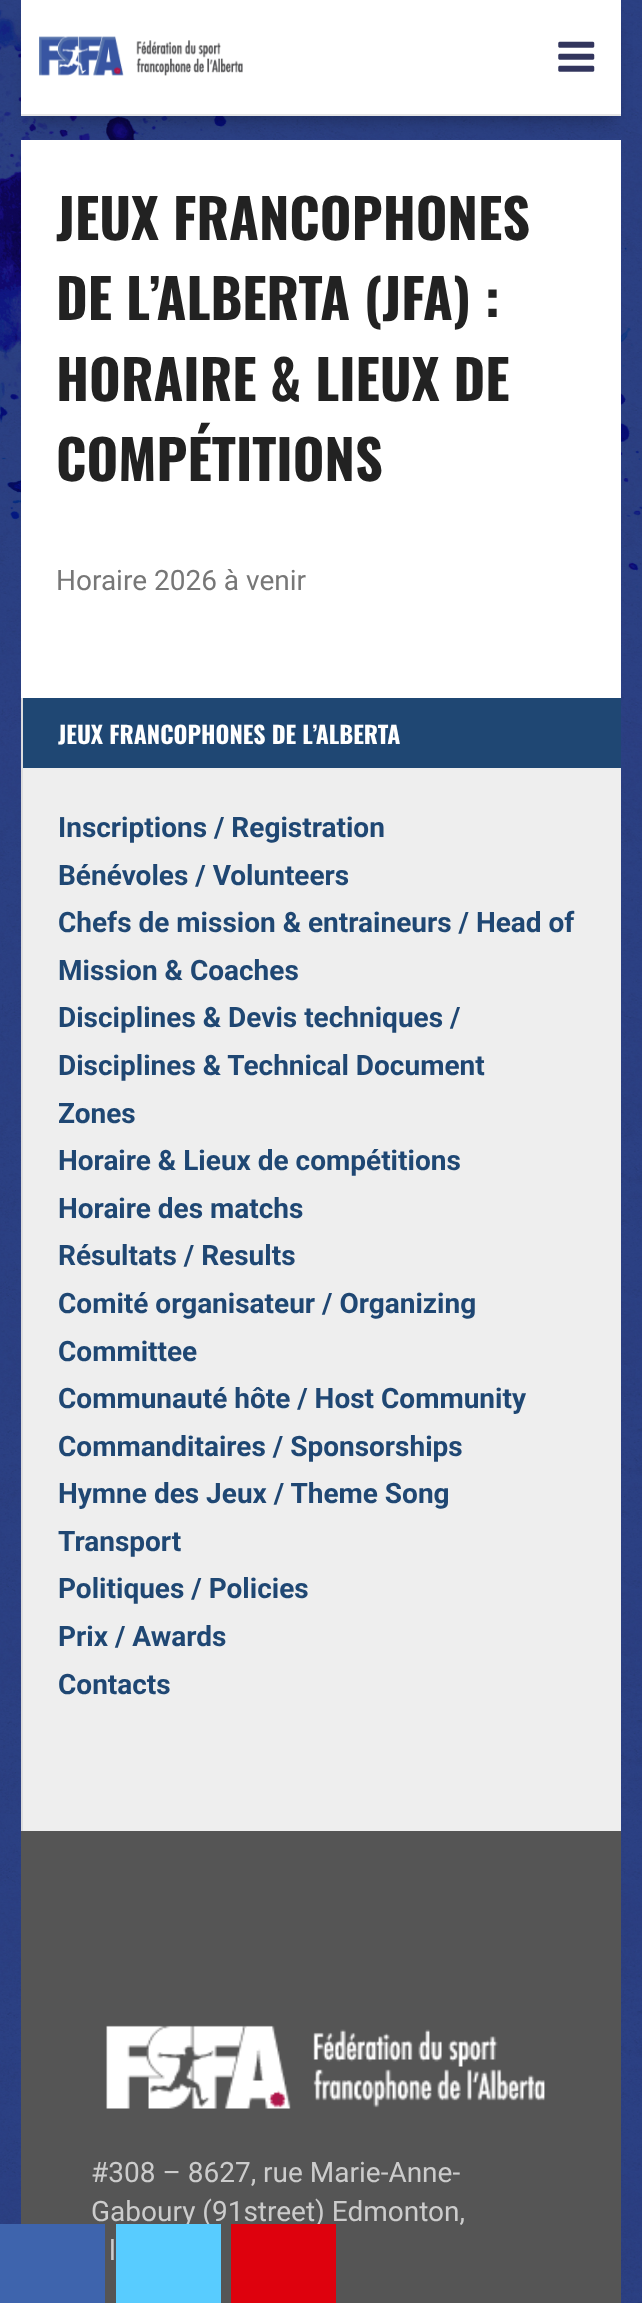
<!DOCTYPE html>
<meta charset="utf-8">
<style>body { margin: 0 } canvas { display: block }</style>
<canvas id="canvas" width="642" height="2303"></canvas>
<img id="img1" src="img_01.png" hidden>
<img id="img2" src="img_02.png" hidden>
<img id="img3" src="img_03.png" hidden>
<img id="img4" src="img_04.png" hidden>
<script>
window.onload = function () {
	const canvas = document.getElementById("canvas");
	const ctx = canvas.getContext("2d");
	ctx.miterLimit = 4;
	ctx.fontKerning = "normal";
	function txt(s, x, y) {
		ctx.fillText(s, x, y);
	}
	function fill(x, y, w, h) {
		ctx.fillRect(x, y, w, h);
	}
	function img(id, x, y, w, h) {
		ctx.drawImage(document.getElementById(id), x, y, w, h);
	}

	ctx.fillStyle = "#FFFFFF";
	fill(0, 0, 642, 2303);
	img("img1", 0, 0, 642, 2303);
	fill(21, 140, 600, 558);
	ctx.fillStyle = "rgba(0, 0, 0, 0.3)";
	ctx.filter = "blur(9px)";
	ctx.beginPath();
	ctx.rect(30, 21, 583, 98);
	ctx.fill();
	ctx.filter = "none";
	ctx.fillStyle = "#FFFFFF";
	fill(21, 0, 600, 114);
	ctx.fillStyle = "#E6E6E6";
	fill(21, 114, 600, 2);
	img("img2", 39, 36, 204, 40);
	img("img3", 558, 41, 37, 31);
	ctx.fillStyle = "#EEEEEE";
	fill(23, 768, 598, 1063);
	ctx.fillStyle = "#DDDDDD";
	fill(21, 698, 2, 1133);
	ctx.fillStyle = "#1F4773";
	fill(23, 698, 598, 70);
	ctx.fillStyle = "#555555";
	fill(21, 1831, 600, 472);
	img("img4", 106, 2025, 439, 84);
	ctx.font = "bold 54.25px Oswald";
	ctx.fillStyle = "#222222";
	txt("JEUX FRANCOPHONES", 56, 240);
	txt("DE L’ALBERTA (JFA) :", 56, 320);
	txt("HORAIRE & LIEUX DE", 56, 401);
	txt("COMPÉTITIONS", 56, 481);
	ctx.font = "28px Roboto";
	ctx.fillStyle = "#777777";
	txt("Horaire 2026 à venir", 56, 590);
	ctx.font = "bold 23.75px Oswald";
	ctx.fillStyle = "#FFFFFF";
	txt("JEUX FRANCOPHONES DE L’ALBERTA", 58, 744);
	ctx.font = "bold 28px Roboto";
	ctx.fillStyle = "#1F4773";
	txt("Inscriptions / Registration", 58, 837);
	txt("Bénévoles / Volunteers", 58, 885);
	txt("Chefs de mission & entraineurs / Head of", 58, 932);
	txt("Mission & Coaches", 58, 980);
	txt("Disciplines & Devis techniques /", 58, 1027);
	txt("Disciplines & Technical Document", 58, 1075);
	txt("Zones", 58, 1123);
	txt("Horaire & Lieux de compétitions", 58, 1170);
	txt("Horaire des matchs", 58, 1218);
	txt("Résultats / Results", 58, 1265);
	txt("Comité organisateur / Organizing", 58, 1313);
	txt("Committee", 58, 1361);
	txt("Communauté hôte / Host Community", 58, 1408);
	txt("Commanditaires / Sponsorships", 58, 1456);
	txt("Hymne des Jeux / Theme Song", 58, 1503);
	txt("Transport", 58, 1551);
	txt("Politiques / Policies", 58, 1598);
	txt("Prix / Awards", 58, 1646);
	txt("Contacts", 58, 1694);
	ctx.font = "28px Roboto";
	ctx.fillStyle = "#CCCCCC";
	txt("#308 – 8627, rue Marie-Anne-", 91, 2182);
	txt("Gaboury (91street) Edmonton,", 91, 2221);
	ctx.fillStyle = "#DE010D";
	fill(231, 2224, 105, 79);
	ctx.fillStyle = "#58CCFF";
	fill(116, 2224, 105, 79);
	ctx.fillStyle = "#3E64AD";
	fill(0, 2224, 105, 79);
	ctx.fillStyle = "#CCCCCC";
	txt("l", 109, 2260);
};
</script>
